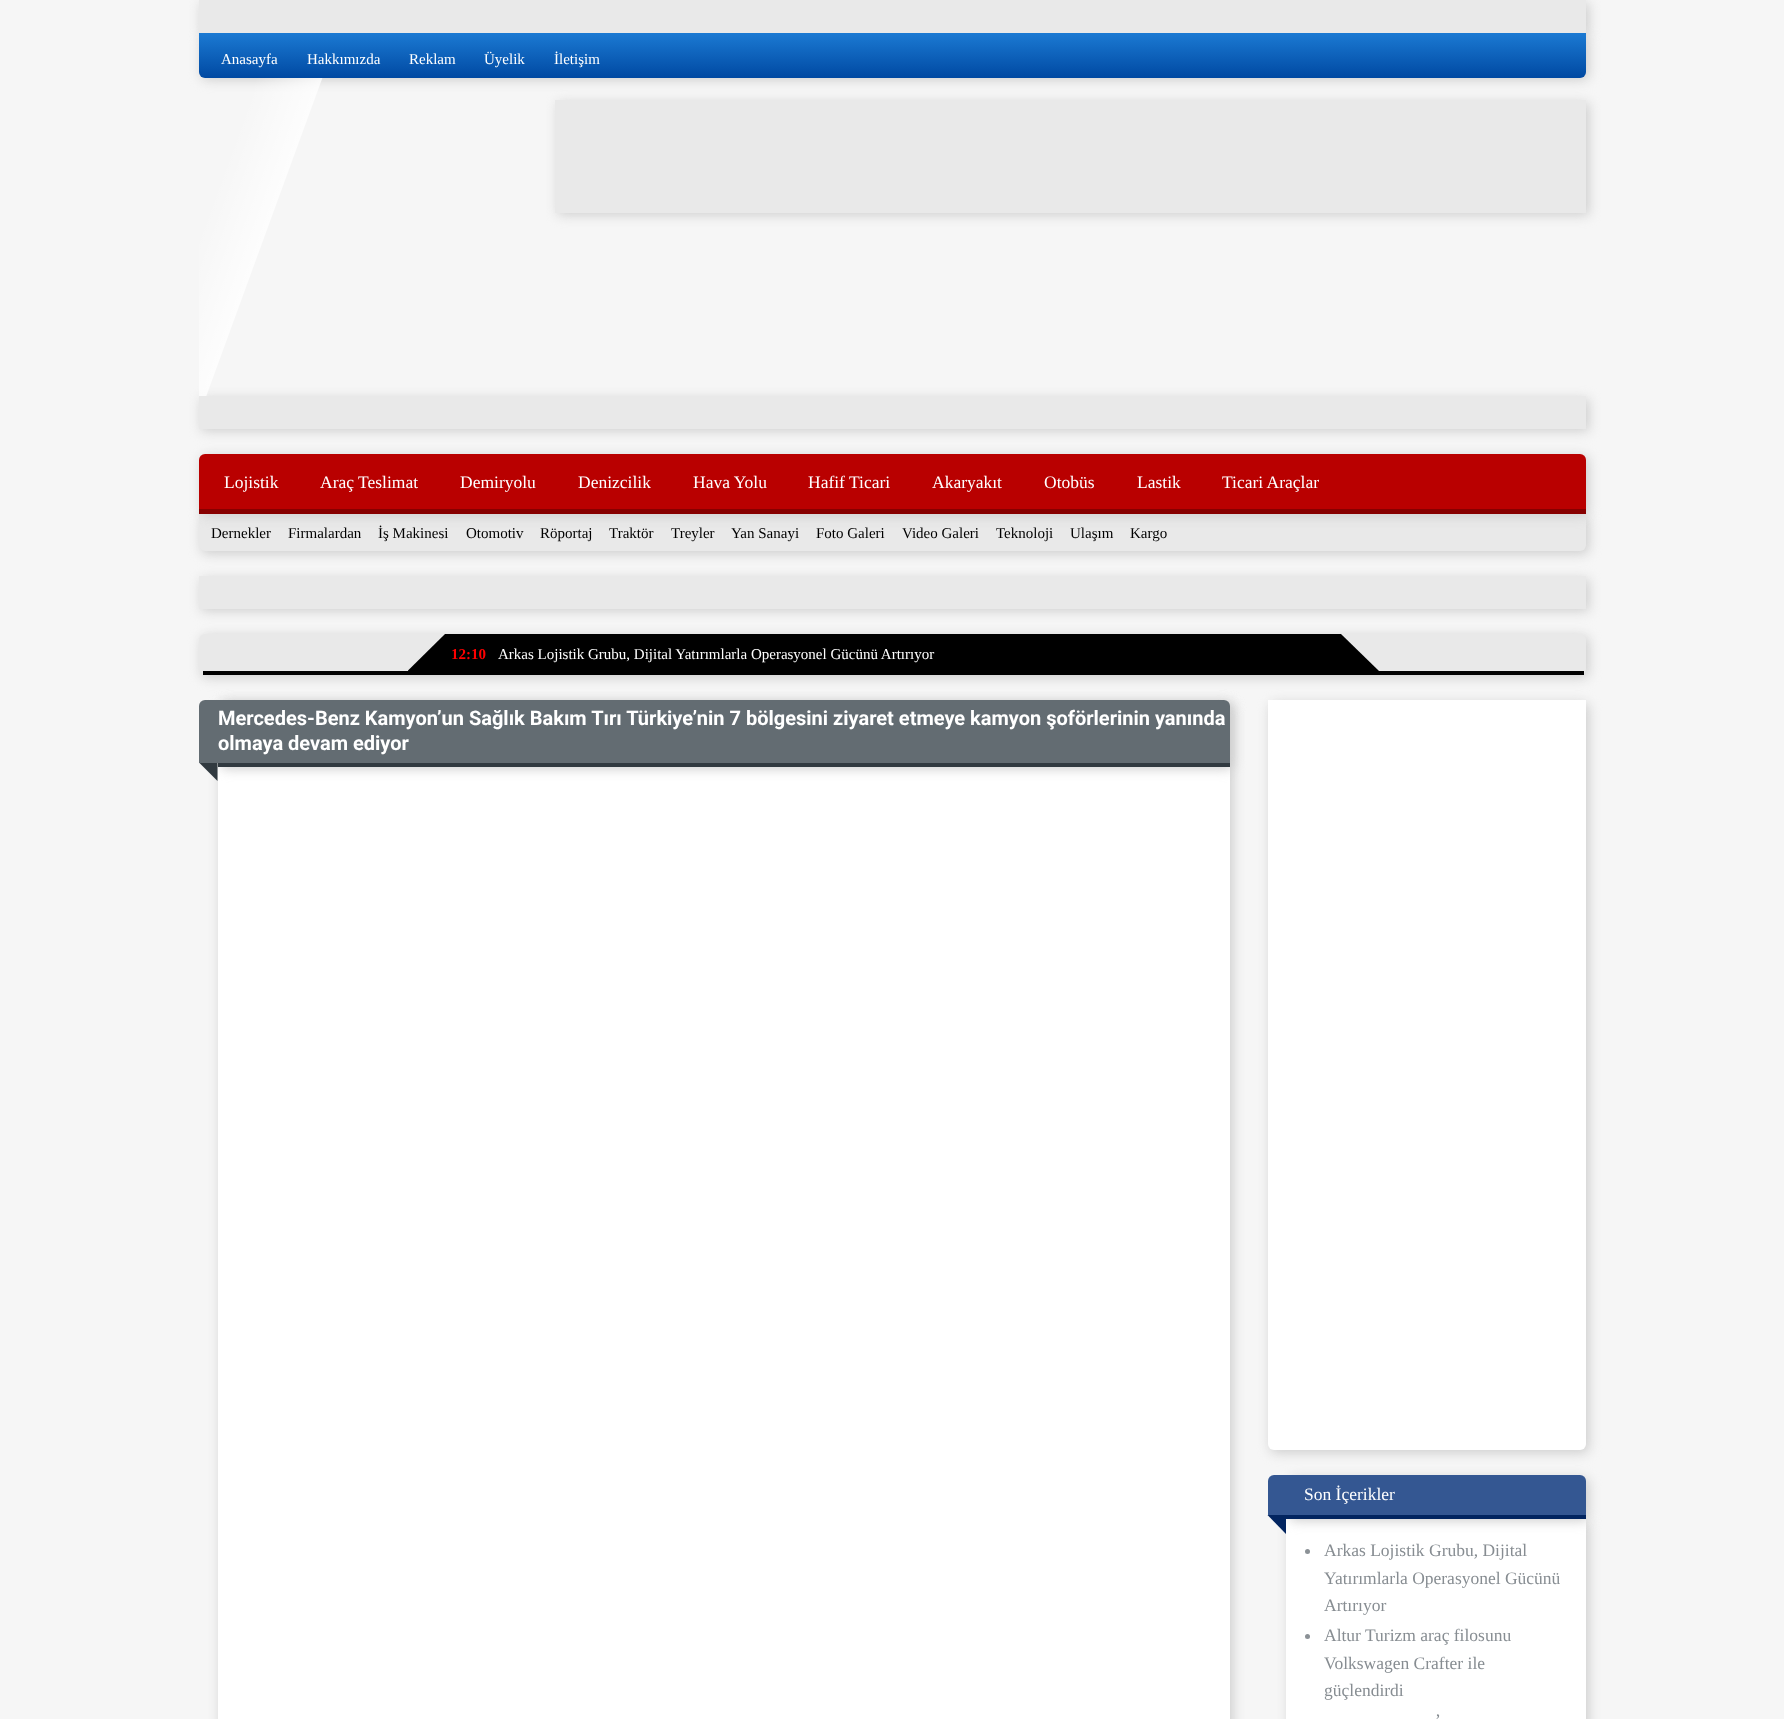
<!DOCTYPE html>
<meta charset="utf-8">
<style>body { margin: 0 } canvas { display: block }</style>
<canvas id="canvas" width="1784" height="1719"></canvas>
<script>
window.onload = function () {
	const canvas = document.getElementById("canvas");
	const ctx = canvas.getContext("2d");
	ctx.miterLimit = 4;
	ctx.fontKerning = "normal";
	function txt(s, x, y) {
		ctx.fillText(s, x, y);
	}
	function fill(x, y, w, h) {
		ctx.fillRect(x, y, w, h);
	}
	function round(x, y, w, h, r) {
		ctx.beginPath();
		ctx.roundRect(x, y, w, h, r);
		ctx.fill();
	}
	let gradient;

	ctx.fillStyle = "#F6F6F6";
	fill(0, 0, 1784, 1719);
	ctx.fillStyle = "#CECECE";
	ctx.filter = "blur(6px)";
	ctx.beginPath();
	ctx.rect(201, 3, 1388, 32);
	ctx.fill();
	ctx.filter = "none";
	ctx.filter = "blur(6px)";
	ctx.beginPath();
	ctx.roundRect(201, 35, 1388, 45, 6);
	ctx.fill();
	ctx.filter = "none";
	ctx.fillStyle = "#E9E9E9";
	fill(199, 0, 1387, 33);
	gradient = ctx.createLinearGradient(893, 32, 893, 78);
	gradient.addColorStop(0, "#1C7BD4");
	gradient.addColorStop(1, "#0049A2");
	ctx.fillStyle = gradient;
	ctx.beginPath();
	ctx.roundRect(199, 33, 1387, 45, [0, 0, 6, 6]);
	ctx.fill();
	ctx.fillStyle = "#CECECE";
	ctx.filter = "blur(6px)";
	ctx.beginPath();
	ctx.rect(201, 399, 1388, 32);
	ctx.fill();
	ctx.filter = "none";
	ctx.save();
	ctx.beginPath();
	ctx.rect(199, 78, 319, 318);
	ctx.clip();
	gradient = ctx.createLinearGradient(201, 226, 261, 248);
	gradient.addColorStop(0, "rgba(255, 255, 255, 0)");
	gradient.addColorStop(1, "rgba(255, 255, 255, 0.8)");
	ctx.fillStyle = gradient;
	ctx.beginPath();
	ctx.moveTo(266, 46);
	ctx.lineTo(326, 68);
	ctx.lineTo(195, 427);
	ctx.lineTo(135, 406);
	ctx.closePath();
	ctx.fill();
	ctx.restore();
	ctx.filter = "blur(6px)";
	ctx.beginPath();
	ctx.rect(558, 103, 1031, 112);
	ctx.fill();
	ctx.filter = "none";
	ctx.fillStyle = "#E9E9E9";
	fill(555, 100, 1031, 113);
	fill(199, 396, 1387, 33);
	ctx.fillStyle = "#CECECE";
	ctx.filter = "blur(6px)";
	ctx.beginPath();
	ctx.roundRect(201, 516, 1388, 38, 6);
	ctx.fill();
	ctx.filter = "none";
	ctx.fillStyle = "#E9E9E9";
	ctx.beginPath();
	ctx.roundRect(199, 514, 1387, 37, [0, 0, 6, 6]);
	ctx.fill();
	ctx.fillStyle = "#CECECE";
	ctx.filter = "blur(6px)";
	ctx.beginPath();
	ctx.roundRect(201, 456, 1388, 60, 6);
	ctx.fill();
	ctx.filter = "none";
	ctx.fillStyle = "#B90000";
	ctx.beginPath();
	ctx.roundRect(199, 454, 1387, 60, [6, 6, 0, 0]);
	ctx.fill();
	ctx.fillStyle = "#870000";
	fill(199, 509, 1387, 5);
	ctx.fillStyle = "#CECECE";
	ctx.filter = "blur(6px)";
	ctx.beginPath();
	ctx.rect(201, 579, 1388, 32);
	ctx.fill();
	ctx.filter = "none";
	ctx.fillStyle = "#E9E9E9";
	fill(199, 576, 1387, 33);
	ctx.fillStyle = "#CECECE";
	ctx.filter = "blur(6px)";
	ctx.beginPath();
	ctx.roundRect(201, 636, 1388, 42, 6);
	ctx.fill();
	ctx.filter = "none";
	ctx.fillStyle = "#E9E9E9";
	round(199, 634, 1387, 41, 6);
	ctx.fillStyle = "#000000";
	fill(203, 671, 1381, 4);
	fill(408, 634, 971, 37);
	ctx.save();
	ctx.beginPath();
	ctx.rect(408, 634, 971, 37);
	ctx.clip();
	ctx.fillStyle = "#E9E9E9";
	ctx.beginPath();
	ctx.moveTo(407.5, 634);
	ctx.lineTo(445, 634);
	ctx.lineTo(407.5, 671);
	ctx.closePath();
	ctx.fill();
	ctx.restore();
	ctx.fillStyle = "#E9E9E9";
	ctx.beginPath();
	ctx.moveTo(1341, 634);
	ctx.lineTo(1379, 634);
	ctx.lineTo(1379, 671);
	ctx.closePath();
	ctx.fill();
	ctx.fillStyle = "#CECECE";
	ctx.filter = "blur(6px)";
	ctx.beginPath();
	ctx.roundRect(220, 703, 1013, 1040, 6);
	ctx.fill();
	ctx.filter = "none";
	ctx.fillStyle = "#FFFFFF";
	ctx.beginPath();
	ctx.moveTo(224, 700);
	ctx.lineTo(1224, 700);
	ctx.bezierCurveTo(1227.5, 700, 1230, 702.5, 1230, 706);
	ctx.lineTo(1230, 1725);
	ctx.lineTo(218, 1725);
	ctx.lineTo(218, 706);
	ctx.bezierCurveTo(218, 702.5, 220.5, 700, 224, 700);
	ctx.closePath();
	ctx.fill();
	ctx.fillStyle = "#CECECE";
	ctx.filter = "blur(6px)";
	ctx.beginPath();
	ctx.roundRect(220, 703, 1013, 66, 6);
	ctx.fill();
	ctx.filter = "none";
	ctx.fillStyle = "#636C72";
	ctx.beginPath();
	ctx.roundRect(218, 700, 1012, 66, [0, 6, 0, 0]);
	ctx.fill();
	ctx.fillStyle = "#313A40";
	fill(218, 763, 1012, 4);
	ctx.beginPath();
	ctx.moveTo(199, 762.5);
	ctx.lineTo(217.5, 762.5);
	ctx.lineTo(217.5, 781);
	ctx.closePath();
	ctx.fill();
	ctx.fillStyle = "#636C72";
	ctx.beginPath();
	ctx.roundRect(199, 700, 19, 63, [6, 0, 0, 0]);
	ctx.fill();
	ctx.fillStyle = "#CECECE";
	ctx.filter = "blur(6px)";
	ctx.beginPath();
	ctx.roundRect(1270, 703, 319, 750, 6);
	ctx.fill();
	ctx.filter = "none";
	ctx.fillStyle = "#FFFFFF";
	ctx.beginPath();
	ctx.roundRect(1268, 700, 318, 750, [0, 0, 6, 6]);
	ctx.fill();
	ctx.fillStyle = "#CECECE";
	ctx.filter = "blur(6px)";
	ctx.beginPath();
	ctx.roundRect(1289, 1521, 300, 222, 6);
	ctx.fill();
	ctx.filter = "none";
	ctx.fillStyle = "#FFFFFF";
	fill(1286, 1519, 300, 200);
	ctx.fillStyle = "#CECECE";
	ctx.filter = "blur(6px)";
	ctx.beginPath();
	ctx.roundRect(1289, 1478, 300, 43, 6);
	ctx.fill();
	ctx.filter = "none";
	ctx.fillStyle = "#345792";
	ctx.beginPath();
	ctx.roundRect(1286, 1475, 300, 44, [0, 6, 0, 0]);
	ctx.fill();
	ctx.fillStyle = "#022560";
	fill(1286, 1515, 300, 4);
	ctx.fillStyle = "#345792";
	ctx.beginPath();
	ctx.roundRect(1268, 1475, 18, 40, [6, 0, 0, 0]);
	ctx.fill();
	ctx.fillStyle = "#022560";
	ctx.beginPath();
	ctx.moveTo(1267.5, 1515);
	ctx.lineTo(1286, 1515);
	ctx.lineTo(1286, 1534);
	ctx.closePath();
	ctx.fill();
	ctx.fillStyle = "#8B9196";
	ctx.beginPath();
	ctx.arc(1307.5, 1551.5, 2.5, 0, Math.PI * 2);
	ctx.fill();
	ctx.beginPath();
	ctx.arc(1307.5, 1636.5, 2.5, 0, Math.PI * 2);
	ctx.fill();
	ctx.font = "15px Liberation Serif";
	ctx.fillStyle = "#FFFFFF";
	txt("Anasayfa", 221, 64);
	txt("Hakkımızda", 307, 64);
	txt("Reklam", 409, 64);
	txt("Üyelik", 484, 64);
	txt("İletişim", 554, 64);
	ctx.font = "17.5px Liberation Serif";
	txt("Lojistik", 224, 488);
	txt("Araç Teslimat", 320, 488);
	txt("Demiryolu", 460, 488);
	txt("Denizcilik", 578, 488);
	txt("Hava Yolu", 693, 488);
	txt("Hafif Ticari", 808, 488);
	txt("Akaryakıt", 932, 488);
	txt("Otobüs", 1044, 488);
	txt("Lastik", 1137, 488);
	txt("Ticari Araçlar", 1222, 488);
	ctx.font = "15px Liberation Serif";
	ctx.fillStyle = "#000000";
	txt("Dernekler", 211, 538);
	txt("Firmalardan", 288, 538);
	txt("İş Makinesi", 378, 538);
	txt("Otomotiv", 466, 538);
	txt("Röportaj", 540, 538);
	txt("Traktör", 609, 538);
	txt("Treyler", 671, 538);
	txt("Yan Sanayi", 731, 538);
	txt("Foto Galeri", 816, 538);
	txt("Video Galeri", 902, 538);
	txt("Teknoloji", 996, 538);
	txt("Ulaşım", 1070, 538);
	txt("Kargo", 1130, 538);
	ctx.font = "bold 15px Liberation Serif";
	ctx.fillStyle = "#FF0000";
	txt("12:10", 451, 659);
	ctx.font = "15px Liberation Serif";
	ctx.fillStyle = "#FFFFFF";
	txt("Arkas Lojistik Grubu, Dijital Yatırımlarla Operasyonel Gücünü Artırıyor", 498, 659);
	ctx.font = "bold 20px Roboto";
	txt("Mercedes-Benz Kamyon’un Sağlık Bakım Tırı Türkiye’nin 7 bölgesini ziyaret etmeye kamyon şoförlerinin yanında", 218, 725);
	txt("olmaya devam ediyor", 218, 750);
	ctx.font = "17.5px Liberation Serif";
	txt("Son İçerikler", 1304, 1500);
	ctx.fillStyle = "#878D92";
	txt("Arkas Lojistik Grubu, Dijital", 1324, 1556);
	txt("Yatırımlarla Operasyonel Gücünü", 1324, 1584);
	txt("Artırıyor", 1324, 1611);
	txt("Altur Turizm araç filosunu", 1324, 1641);
	txt("Volkswagen Crafter ile", 1324, 1669);
	txt("güçlendirdi", 1324, 1696);
	txt("’", 1435, 1726);
};
</script>
